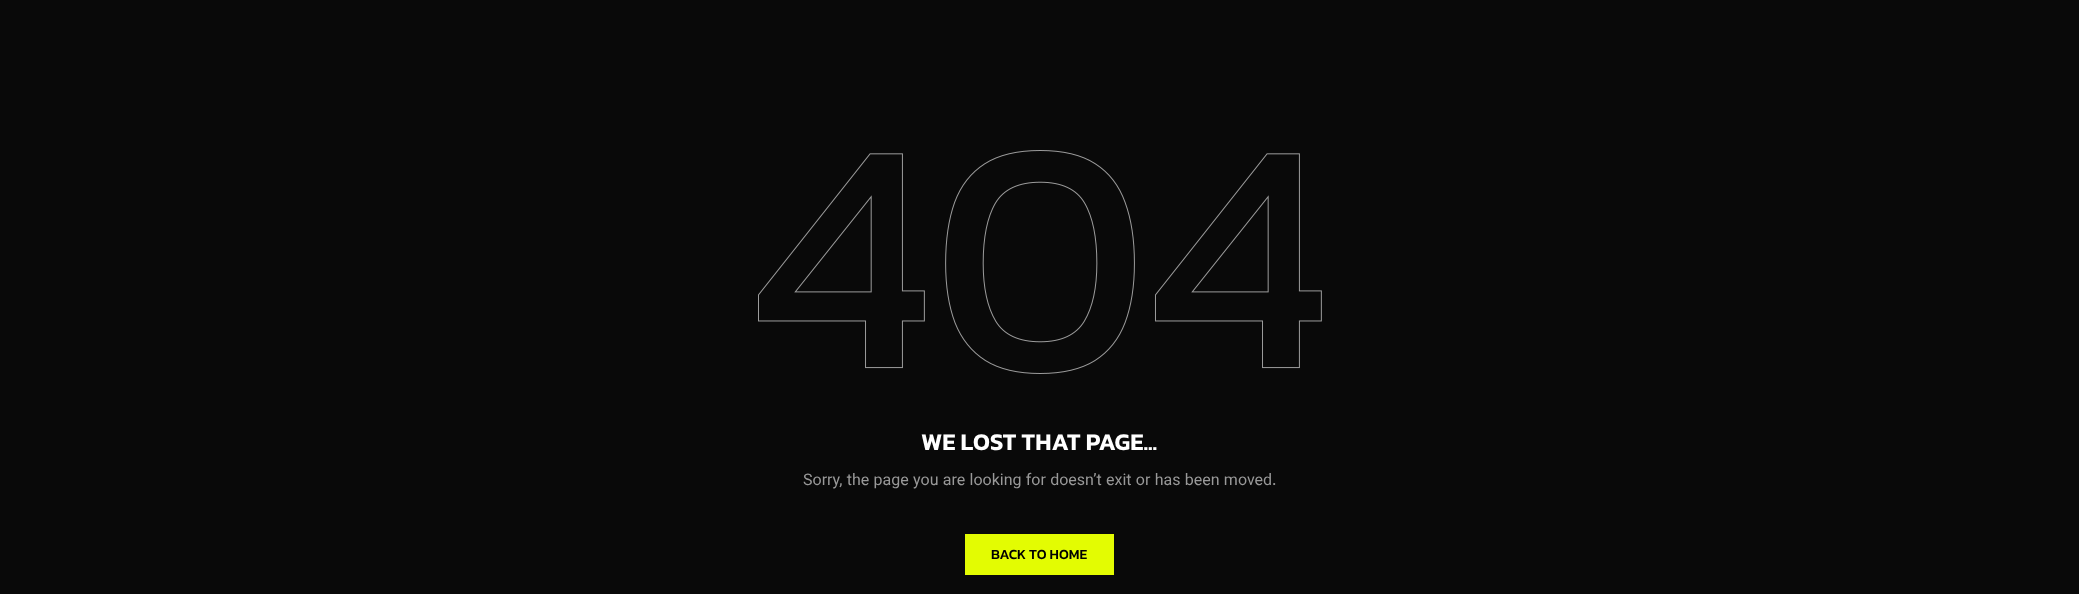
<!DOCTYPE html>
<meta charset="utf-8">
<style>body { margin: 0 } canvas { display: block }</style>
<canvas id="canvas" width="2079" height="594"></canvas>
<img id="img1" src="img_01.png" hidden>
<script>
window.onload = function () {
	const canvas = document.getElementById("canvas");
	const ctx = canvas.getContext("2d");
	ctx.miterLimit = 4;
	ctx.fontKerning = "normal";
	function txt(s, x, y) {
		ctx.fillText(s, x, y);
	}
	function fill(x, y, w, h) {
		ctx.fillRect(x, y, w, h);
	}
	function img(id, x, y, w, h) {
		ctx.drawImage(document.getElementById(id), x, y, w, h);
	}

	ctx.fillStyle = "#090909";
	fill(0, 0, 2079, 594);
	img("img1", 758, 150, 564, 224);
	ctx.fillStyle = "#E3FC02";
	fill(965, 534, 149, 41);
	ctx.font = "600 24px Kanit";
	ctx.fillStyle = "#FFFFFF";
	txt("WE LOST THAT PAGE...", 921, 450);
	ctx.font = "16px Vazirmatn";
	ctx.fillStyle = "#999999";
	txt("Sorry, the page you are looking for doesn’t exit or has been moved.", 803, 485);
	ctx.font = "500 14px Kanit";
	ctx.fillStyle = "#000000";
	txt("BACK TO HOME", 991, 559);
};
</script>
